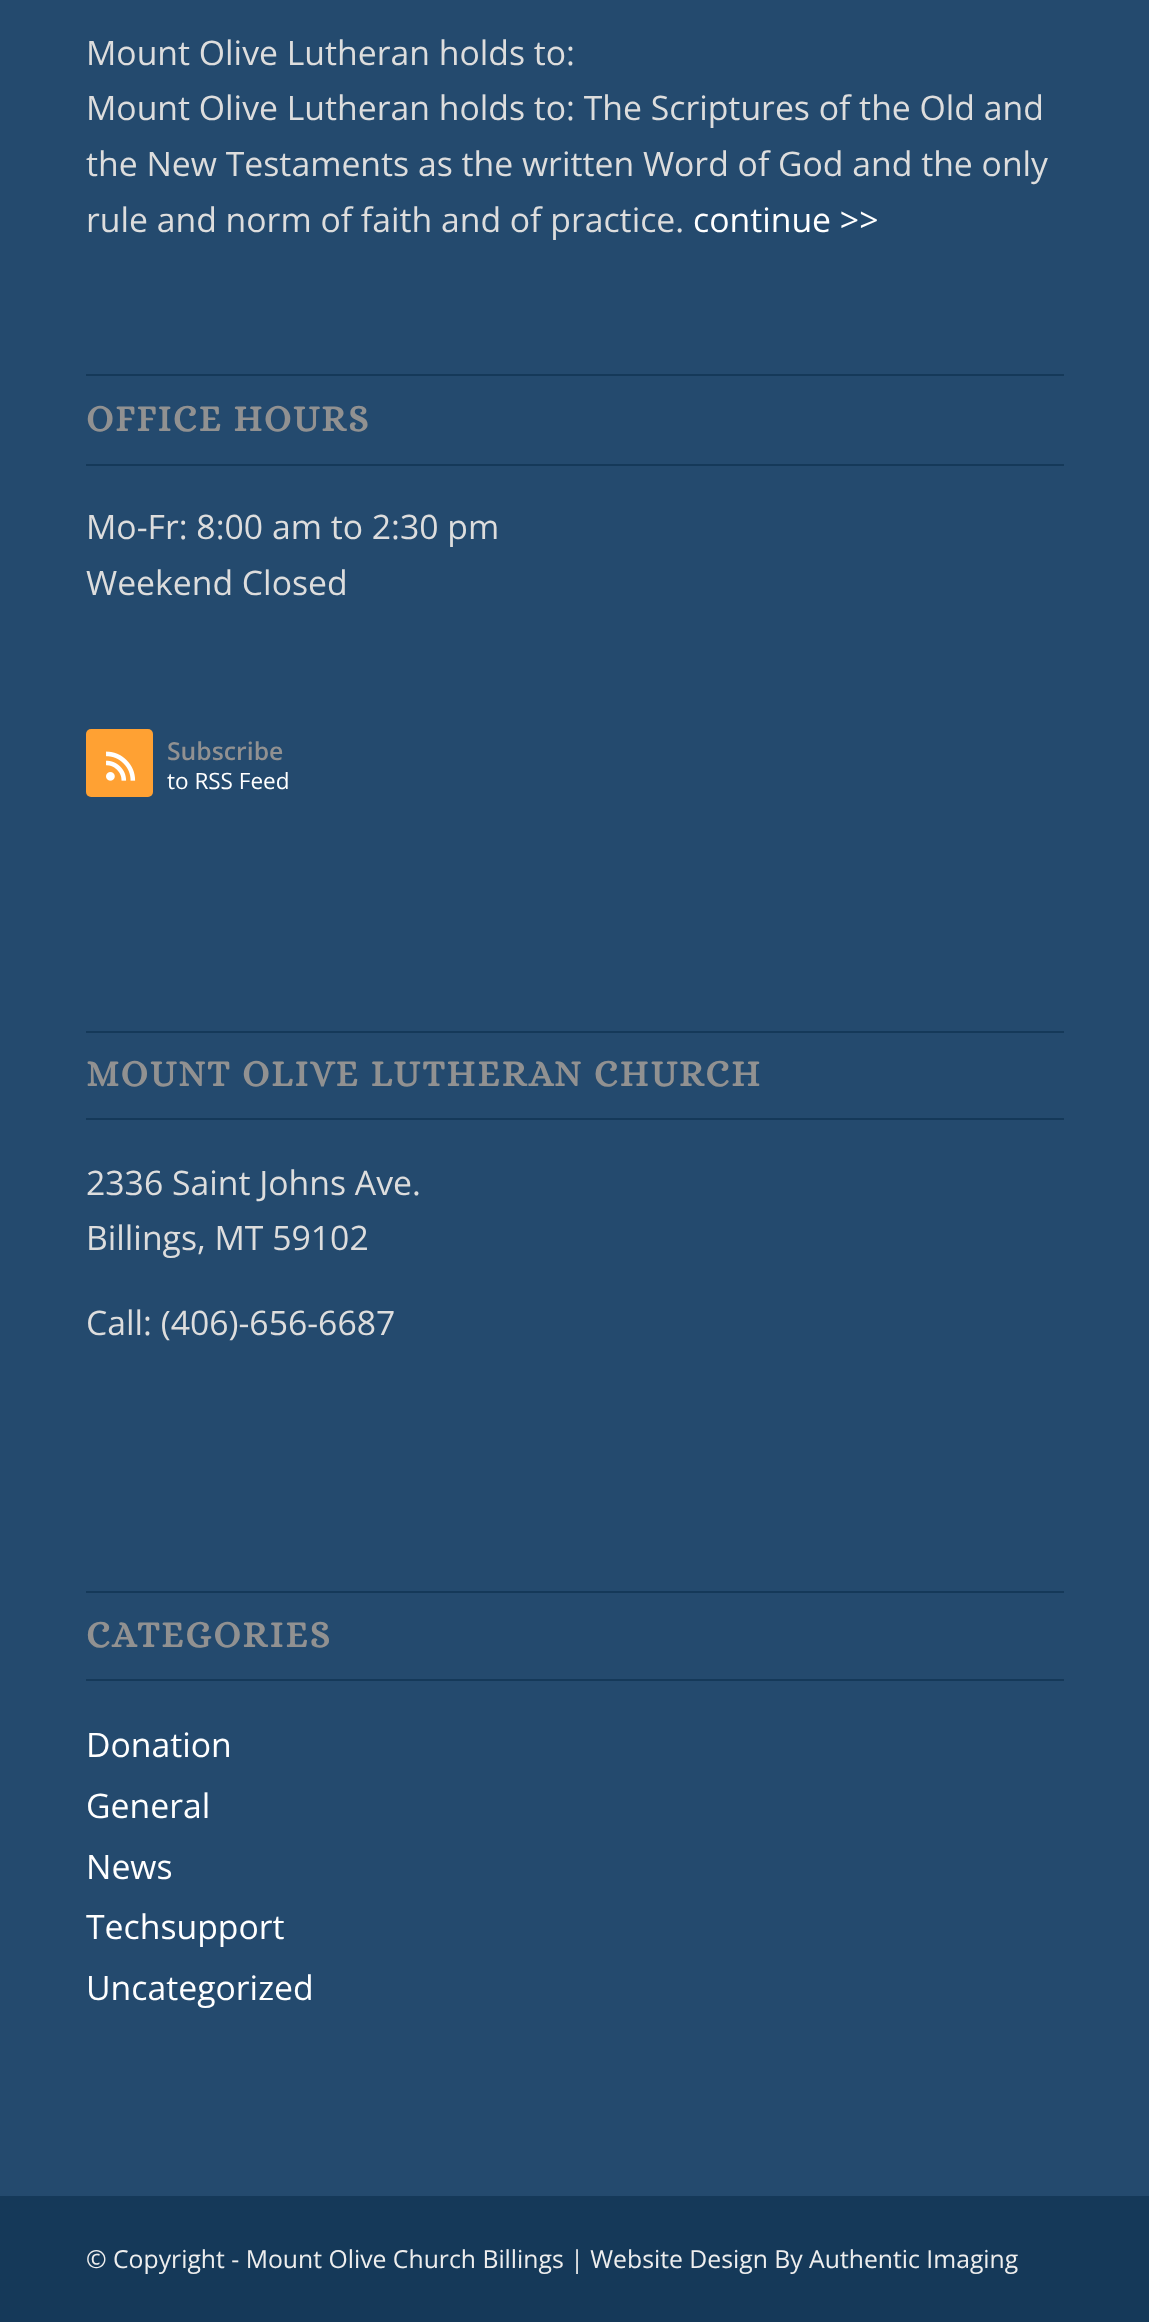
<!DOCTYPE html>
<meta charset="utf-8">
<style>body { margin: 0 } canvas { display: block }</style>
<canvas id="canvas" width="1149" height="2322"></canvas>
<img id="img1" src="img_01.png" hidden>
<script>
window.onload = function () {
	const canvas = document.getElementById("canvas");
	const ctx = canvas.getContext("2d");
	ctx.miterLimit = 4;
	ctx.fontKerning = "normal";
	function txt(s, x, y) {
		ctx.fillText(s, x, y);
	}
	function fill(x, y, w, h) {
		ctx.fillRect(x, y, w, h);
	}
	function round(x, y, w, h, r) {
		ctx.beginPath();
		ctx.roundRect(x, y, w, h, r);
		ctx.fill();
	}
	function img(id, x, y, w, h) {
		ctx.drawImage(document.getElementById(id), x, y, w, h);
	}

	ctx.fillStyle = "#244A6E";
	fill(0, 0, 1149, 2322);
	ctx.fillStyle = "#153959";
	fill(86, 374, 978, 2);
	fill(86, 464, 978, 2);
	ctx.fillStyle = "#FFA133";
	round(86, 729, 67, 68, 5);
	img("img1", 106, 751, 30, 30);
	ctx.fillStyle = "#153959";
	fill(86, 1031, 978, 2);
	fill(86, 1118, 978, 2);
	fill(86, 1591, 978, 2);
	fill(86, 1679, 978, 2);
	fill(0, 2196, 1149, 126);
	ctx.font = "33.75px Open Sans";
	ctx.fillStyle = "#DDDDDD";
	txt("Mount Olive Lutheran holds to:", 86, 65);
	txt("Mount Olive Lutheran holds to: The Scriptures of the Old and", 86, 120);
	txt("the New Testaments as the written Word of God and the only", 86, 176);
	txt("rule and norm of faith and of practice.", 86, 232);
	ctx.fillStyle = "#FFFFFF";
	txt("continue >>", 693, 232);
	ctx.letterSpacing = "2.25px";
	ctx.font = "bold 37.1px Alice";
	ctx.fillStyle = "#919191";
	txt("OFFICE HOURS", 86, 431);
	ctx.letterSpacing = "0px";
	ctx.font = "33.75px Open Sans";
	ctx.fillStyle = "#DDDDDD";
	txt("Mo-Fr: 8:00 am to 2:30 pm", 86, 539);
	txt("Weekend Closed", 86, 595);
	ctx.font = "600 24.75px Open Sans";
	ctx.fillStyle = "#919191";
	txt("Subscribe", 167, 760);
	ctx.font = "22.5px Open Sans";
	ctx.fillStyle = "#FFFFFF";
	txt("to RSS Feed", 167, 789);
	ctx.letterSpacing = "2.25px";
	ctx.font = "bold 37.1px Alice";
	ctx.fillStyle = "#919191";
	txt("MOUNT OLIVE LUTHERAN CHURCH", 86, 1086);
	ctx.letterSpacing = "0px";
	ctx.font = "33.75px Open Sans";
	ctx.fillStyle = "#DDDDDD";
	txt("2336 Saint Johns Ave.", 86, 1195);
	txt("Billings, MT 59102", 86, 1250);
	txt("Call: (406)-656-6687", 86, 1335);
	ctx.letterSpacing = "2.25px";
	ctx.font = "bold 37.1px Alice";
	ctx.fillStyle = "#919191";
	txt("CATEGORIES", 86, 1647);
	ctx.letterSpacing = "0px";
	ctx.font = "33.75px Open Sans";
	ctx.fillStyle = "#FFFFFF";
	txt("Donation", 86, 1757);
	txt("General", 86, 1818);
	txt("News", 86, 1879);
	txt("Techsupport", 86, 1939);
	txt("Uncategorized", 86, 2000);
	ctx.font = "24.75px Open Sans";
	ctx.fillStyle = "#EEEEEE";
	txt("© Copyright - Mount Olive Church Billings | Website Design By Authentic Imaging", 86, 2268);
};
</script>
